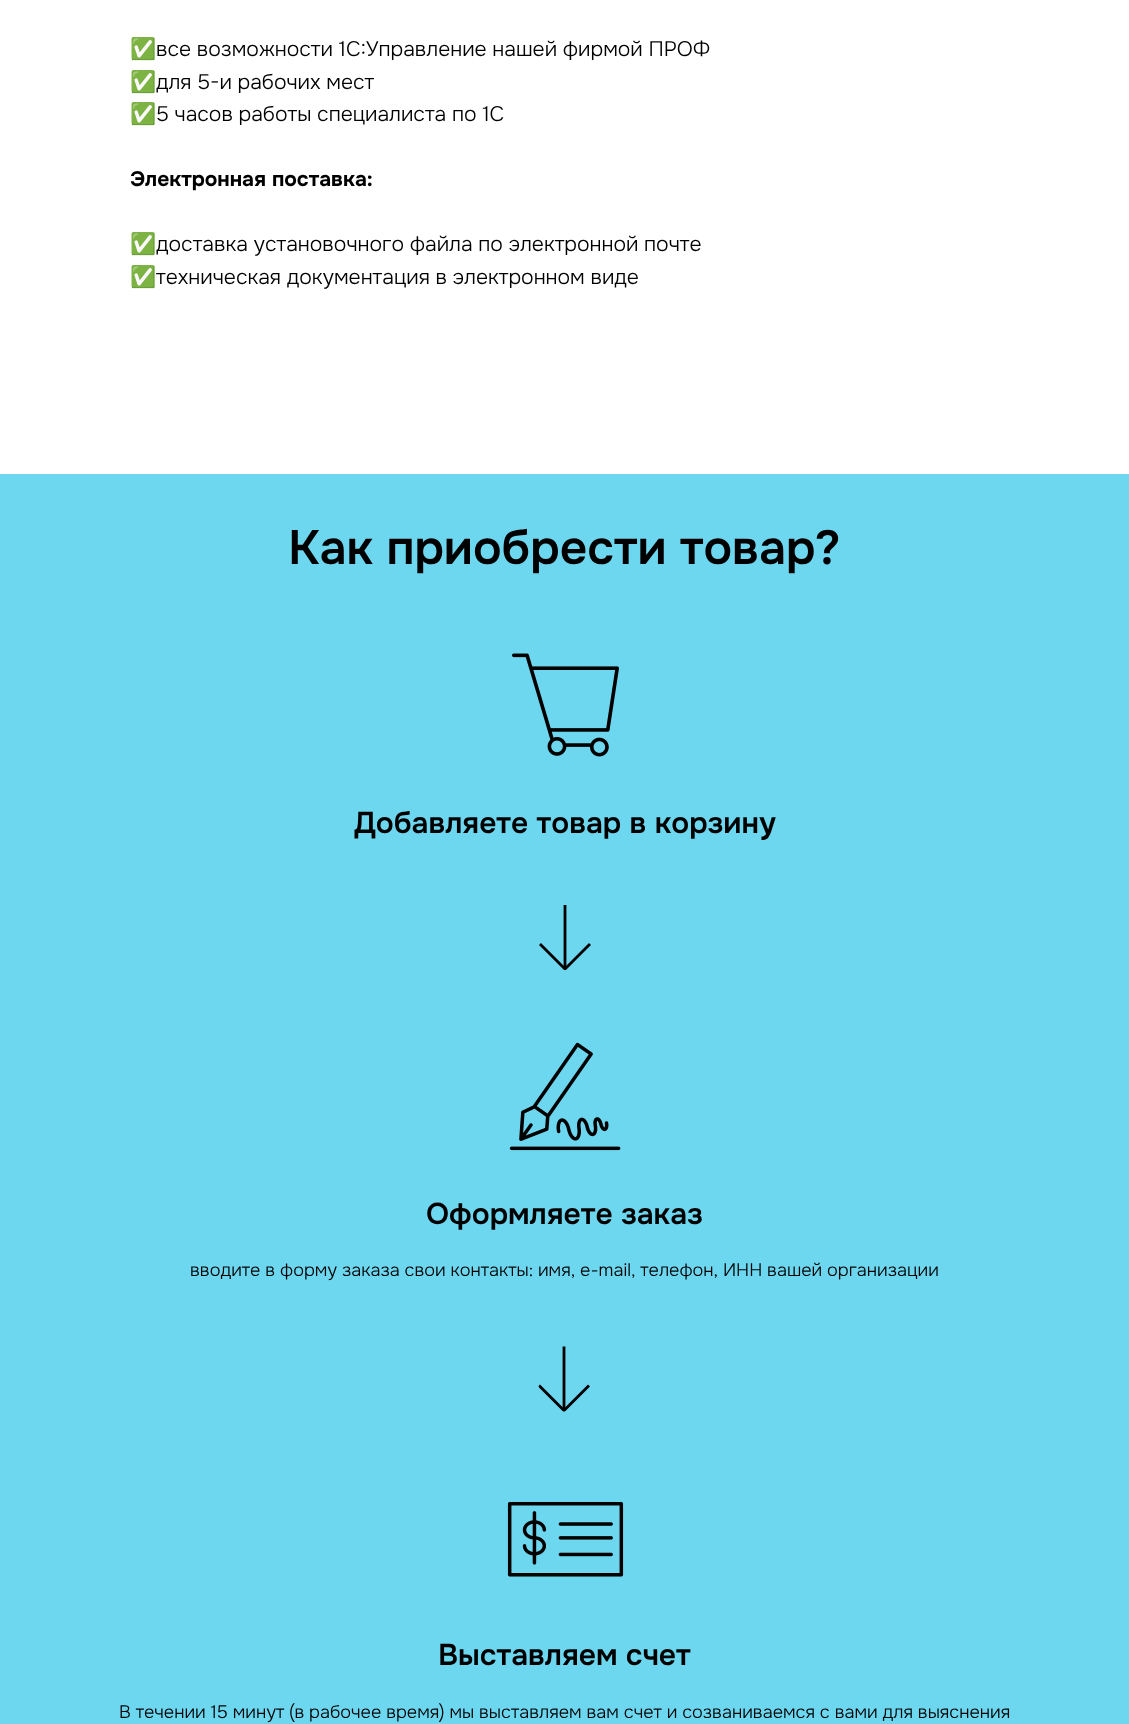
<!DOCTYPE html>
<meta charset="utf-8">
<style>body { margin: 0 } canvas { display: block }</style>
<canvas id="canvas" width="1129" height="1724"></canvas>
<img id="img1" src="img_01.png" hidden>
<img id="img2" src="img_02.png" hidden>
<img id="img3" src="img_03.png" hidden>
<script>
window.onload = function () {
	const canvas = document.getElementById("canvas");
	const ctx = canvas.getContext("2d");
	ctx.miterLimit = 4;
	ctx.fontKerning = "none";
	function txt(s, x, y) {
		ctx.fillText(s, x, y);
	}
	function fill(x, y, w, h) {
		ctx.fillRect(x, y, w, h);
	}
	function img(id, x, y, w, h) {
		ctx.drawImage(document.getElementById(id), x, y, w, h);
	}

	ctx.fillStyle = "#FFFFFF";
	fill(0, 0, 1129, 1724);
	ctx.fillStyle = "#6ED7F0";
	fill(0, 474, 1129, 1250);
	img("img1", 512, 653, 107, 104);
	ctx.beginPath();
	ctx.moveTo(565, 905);
	ctx.lineTo(565, 969);
	ctx.strokeStyle = "#000000";
	ctx.lineWidth = 2.8;
	ctx.stroke();
	ctx.save();
	ctx.beginPath();
	ctx.moveTo(591, 904);
	ctx.lineTo(591, 970);
	ctx.lineTo(538.5, 970);
	ctx.lineTo(538.5, 904);
	ctx.closePath();
	ctx.clip();
	ctx.beginPath();
	ctx.moveTo(540, 944);
	ctx.lineTo(565, 969);
	ctx.lineTo(590, 944);
	ctx.stroke();
	ctx.restore();
	img("img2", 509, 1042, 112, 109);
	ctx.beginPath();
	ctx.moveTo(564, 1346.5);
	ctx.lineTo(564, 1410.5);
	ctx.stroke();
	ctx.save();
	ctx.beginPath();
	ctx.moveTo(591, 1345.5);
	ctx.lineTo(591, 1411.5);
	ctx.lineTo(538.5, 1411.5);
	ctx.lineTo(538.5, 1345.5);
	ctx.closePath();
	ctx.clip();
	ctx.beginPath();
	ctx.moveTo(539, 1385.5);
	ctx.lineTo(564, 1410.5);
	ctx.lineTo(589, 1385.5);
	ctx.stroke();
	ctx.restore();
	img("img3", 507, 1502, 117, 75);
	ctx.font = "21px Noto Color Emoji";
	ctx.fillStyle = "#000000";
	txt("✅", 130, 56);
	ctx.font = "300 21px Onest";
	txt("все возможности 1С:Управление нашей фирмой ПРОФ", 156, 56);
	ctx.font = "21px Noto Color Emoji";
	txt("✅", 130, 89);
	ctx.font = "300 21px Onest";
	txt("для 5-и рабочих мест", 156, 89);
	ctx.font = "21px Noto Color Emoji";
	txt("✅", 130, 121);
	ctx.font = "300 21px Onest";
	txt("5 часов работы специалиста по 1С", 156, 121);
	ctx.font = "bold 21px Onest";
	txt("Электронная поставка:", 130, 186);
	ctx.font = "21px Noto Color Emoji";
	txt("✅", 130, 251);
	ctx.font = "300 21px Onest";
	txt("доставка установочного файла по электронной почте", 156, 251);
	ctx.font = "21px Noto Color Emoji";
	txt("✅", 130, 284);
	ctx.font = "300 21px Onest";
	txt("техническая документация в электронном виде", 156, 284);
	ctx.font = "600 48px Onest";
	txt("Как приобрести товар?", 288, 564);
	ctx.font = "600 30px Onest";
	txt("Добавляете товар в корзину", 354, 833);
	txt("Оформляете заказ", 426, 1224);
	ctx.font = "300 18px Onest";
	txt("вводите в форму заказа свои контакты: имя, e-mail, телефон, ИНН вашей организации", 190, 1276);
	ctx.font = "600 30px Onest";
	txt("Выставляем счет", 438, 1665);
	ctx.font = "300 18px Onest";
	txt("В течении 15 минут (в рабочее время) мы выставляем вам счет и созваниваемся с вами для выяснения", 119, 1718);
};
</script>
